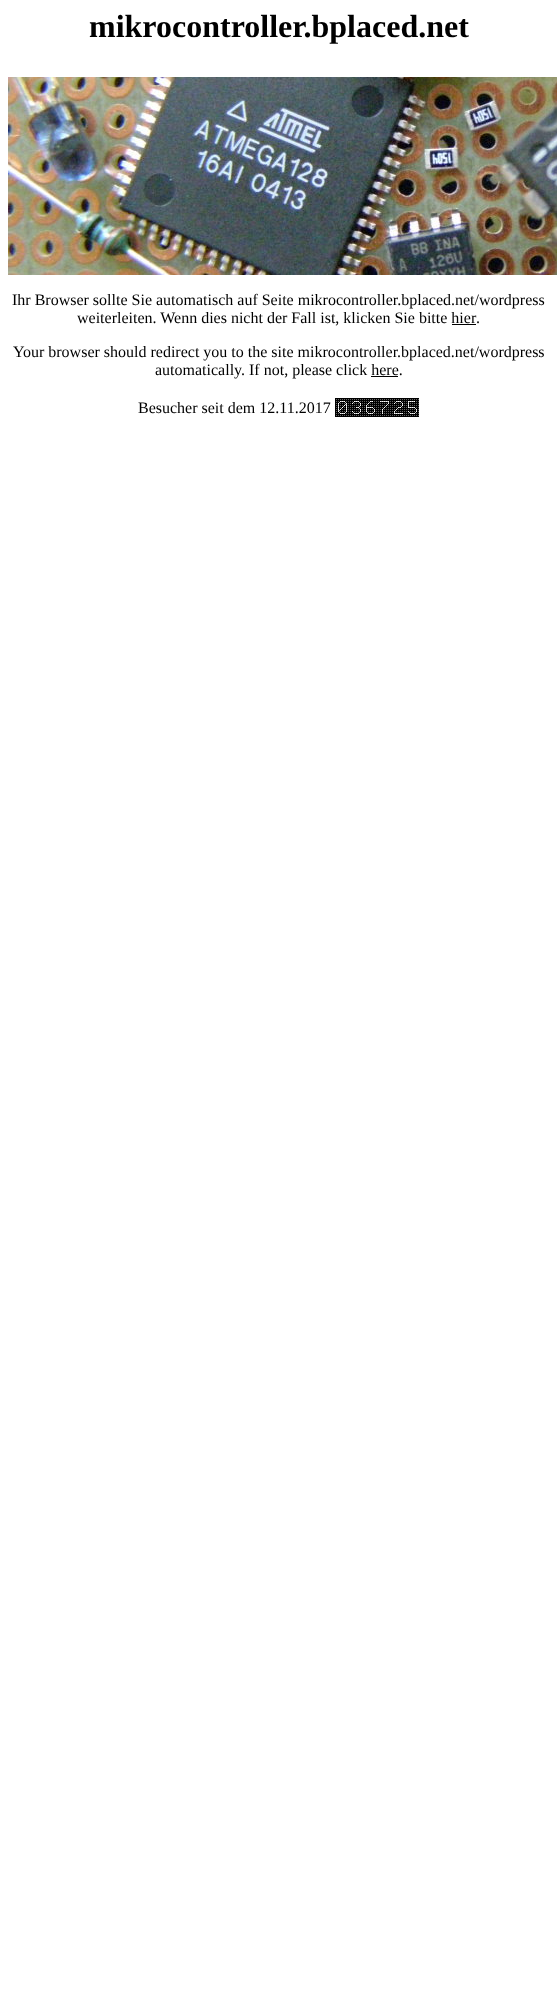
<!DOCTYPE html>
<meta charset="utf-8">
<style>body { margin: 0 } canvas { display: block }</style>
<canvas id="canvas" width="557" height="2011"></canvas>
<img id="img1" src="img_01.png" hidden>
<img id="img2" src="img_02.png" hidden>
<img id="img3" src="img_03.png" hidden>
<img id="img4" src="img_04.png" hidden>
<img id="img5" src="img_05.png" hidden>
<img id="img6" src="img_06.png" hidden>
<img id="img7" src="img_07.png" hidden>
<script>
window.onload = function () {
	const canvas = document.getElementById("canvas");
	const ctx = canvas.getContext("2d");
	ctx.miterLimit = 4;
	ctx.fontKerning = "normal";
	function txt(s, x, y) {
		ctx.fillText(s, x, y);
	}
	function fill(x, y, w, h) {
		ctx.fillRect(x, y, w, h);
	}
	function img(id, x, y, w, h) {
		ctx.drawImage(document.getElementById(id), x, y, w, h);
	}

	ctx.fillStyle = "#FFFFFF";
	fill(0, 0, 557, 2011);
	img("img1", 8, 77, 549, 198);
	ctx.fillStyle = "#000000";
	fill(452, 324, 24, 1);
	fill(371, 376, 27, 1);
	img("img2", 335, 398, 14, 19);
	img("img3", 349, 398, 14, 19);
	img("img4", 363, 398, 14, 19);
	img("img5", 377, 398, 14, 19);
	img("img6", 391, 398, 14, 19);
	img("img7", 405, 398, 14, 19);
	ctx.font = "bold 32px Liberation Serif";
	txt("mikrocontroller.bplaced.net", 89, 37);
	ctx.font = "16px Liberation Serif";
	txt("Ihr Browser sollte Sie automatisch auf Seite mikrocontroller.bplaced.net/wordpress", 12, 305);
	txt("weiterleiten. Wenn dies nicht der Fall ist, klicken Sie bitte hier", 77, 323);
	txt(".", 476, 323);
	txt("Your browser should redirect you to the site mikrocontroller.bplaced.net/wordpress", 13, 357);
	txt("automatically. If not, please click here.", 155, 375);
	txt("Besucher seit dem 12.11.2017", 138, 413);
};
</script>
